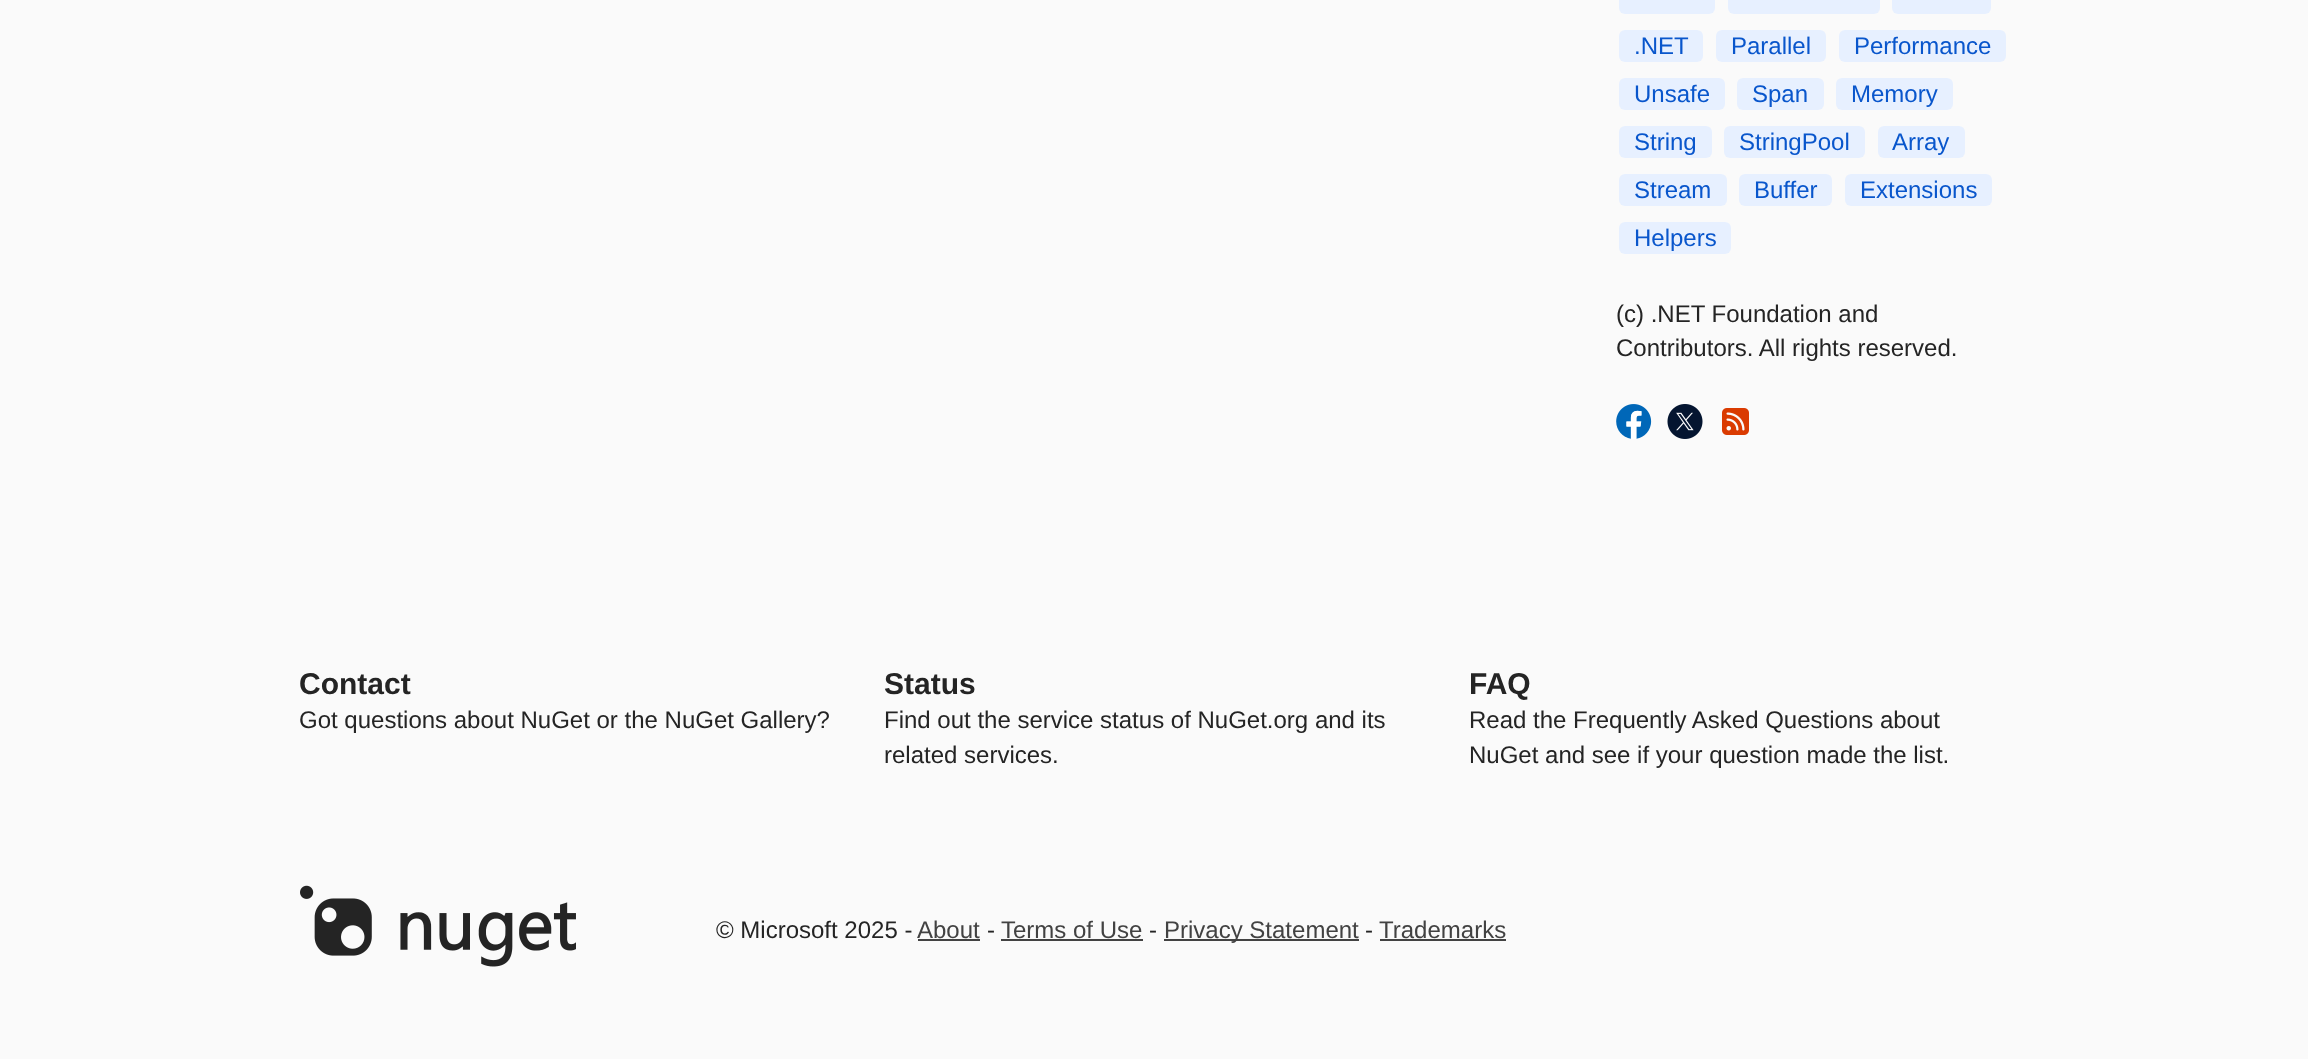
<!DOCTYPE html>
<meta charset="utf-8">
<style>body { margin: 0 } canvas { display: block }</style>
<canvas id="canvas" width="2308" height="1059"></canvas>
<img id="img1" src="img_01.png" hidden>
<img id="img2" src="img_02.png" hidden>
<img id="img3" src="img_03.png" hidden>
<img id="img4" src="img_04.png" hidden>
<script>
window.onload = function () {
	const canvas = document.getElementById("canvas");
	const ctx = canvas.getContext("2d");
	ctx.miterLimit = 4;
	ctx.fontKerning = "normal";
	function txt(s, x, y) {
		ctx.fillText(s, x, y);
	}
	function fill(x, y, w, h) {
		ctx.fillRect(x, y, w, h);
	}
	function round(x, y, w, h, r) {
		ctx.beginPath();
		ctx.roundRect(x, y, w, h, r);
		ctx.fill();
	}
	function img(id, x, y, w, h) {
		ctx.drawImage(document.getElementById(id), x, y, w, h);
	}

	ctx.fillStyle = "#FAFAFA";
	fill(0, 0, 2308, 1059);
	ctx.fillStyle = "#E7F0FF";
	round(1619, -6, 96, 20, 6);
	round(1728, -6, 152, 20, 6);
	round(1892, -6, 99, 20, 6);
	round(1619, 30, 84, 32, 6);
	round(1716, 30, 110, 32, 6);
	round(1839, 30, 167, 32, 6);
	round(1619, 78, 106, 32, 6);
	round(1737, 78, 87, 32, 6);
	round(1836, 78, 117, 32, 6);
	round(1619, 126, 93, 32, 6);
	round(1724, 126, 141, 32, 6);
	round(1878, 126, 87, 32, 6);
	round(1619, 174, 108, 32, 6);
	round(1739, 174, 93, 32, 6);
	round(1845, 174, 147, 32, 6);
	round(1619, 222, 112, 32, 6);
	img("img1", 1616, 404, 36, 35);
	img("img2", 1667, 404, 36, 35);
	img("img3", 1722, 408, 27, 27);
	img("img4", 300, 885, 276, 82);
	ctx.fillStyle = "#424242";
	fill(918, 939, 62, 2);
	fill(1001, 939, 142, 2);
	fill(1164, 939, 195, 2);
	fill(1380, 939, 126, 2);
	ctx.font = "24px Liberation Sans";
	ctx.fillStyle = "#0956CC";
	txt(".NET", 1634, 54);
	txt("Parallel", 1731, 54);
	txt("Performance", 1854, 54);
	txt("Unsafe", 1634, 102);
	txt("Span", 1752, 102);
	txt("Memory", 1851, 102);
	txt("String", 1634, 150);
	txt("StringPool", 1739, 150);
	txt("Array", 1892, 150);
	txt("Stream", 1634, 198);
	txt("Buffer", 1754, 198);
	txt("Extensions", 1860, 198);
	txt("Helpers", 1634, 246);
	ctx.fillStyle = "#242424";
	txt("(c) .NET Foundation and", 1616, 322);
	txt("Contributors. All rights reserved.", 1616, 356);
	ctx.font = "bold 30px Liberation Sans";
	txt("Contact", 299, 694);
	ctx.font = "24px Liberation Sans";
	txt("Got questions about NuGet or the NuGet Gallery?", 299, 728);
	ctx.font = "bold 30px Liberation Sans";
	txt("Status", 884, 694);
	ctx.font = "24px Liberation Sans";
	txt("Find out the service status of NuGet.org and its", 884, 728);
	txt("related services.", 884, 763);
	ctx.font = "bold 30px Liberation Sans";
	txt("FAQ", 1469, 694);
	ctx.font = "24px Liberation Sans";
	txt("Read the Frequently Asked Questions about", 1469, 728);
	txt("NuGet and see if your question made the list.", 1469, 763);
	txt("© Microsoft 2025 -", 716, 938);
	ctx.fillStyle = "#424242";
	txt("About", 917, 938);
	ctx.fillStyle = "#242424";
	txt("-", 987, 938);
	ctx.fillStyle = "#424242";
	txt("Terms of Use", 1001, 938);
	ctx.fillStyle = "#242424";
	txt("-", 1149, 938);
	ctx.fillStyle = "#424242";
	txt("Privacy Statement", 1164, 938);
	ctx.fillStyle = "#242424";
	txt("-", 1365, 938);
	ctx.fillStyle = "#424242";
	txt("Trademarks", 1379, 938);
};
</script>
